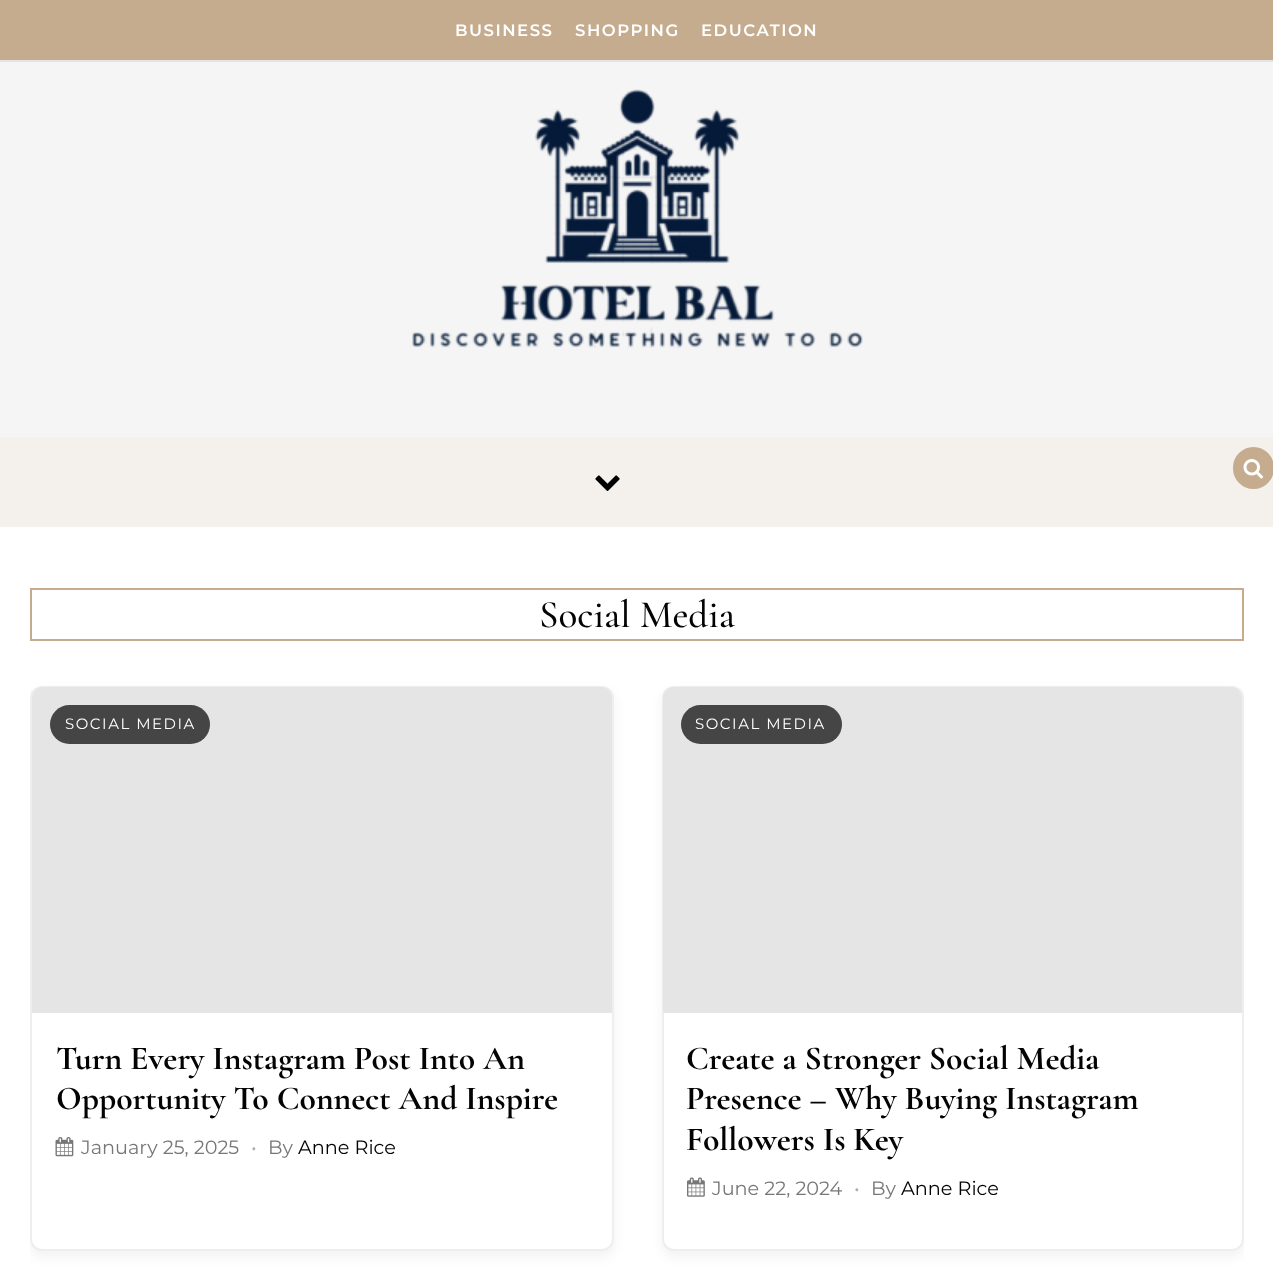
<!DOCTYPE html>
<meta charset="utf-8">
<style>body { margin: 0 } canvas { display: block }</style>
<canvas id="canvas" width="1273" height="1276"></canvas>
<img id="img1" src="img_01.png" hidden>
<img id="img2" src="img_02.png" hidden>
<img id="img3" src="img_03.png" hidden>
<img id="img4" src="img_04.png" hidden>
<img id="img5" src="img_05.png" hidden>
<script>
window.onload = function () {
	const canvas = document.getElementById("canvas");
	const ctx = canvas.getContext("2d");
	ctx.miterLimit = 4;
	ctx.fontKerning = "normal";
	function txt(s, x, y) {
		ctx.fillText(s, x, y);
	}
	function fill(x, y, w, h) {
		ctx.fillRect(x, y, w, h);
	}
	function round(x, y, w, h, r) {
		ctx.beginPath();
		ctx.roundRect(x, y, w, h, r);
		ctx.fill();
	}
	function img(id, x, y, w, h) {
		ctx.drawImage(document.getElementById(id), x, y, w, h);
	}

	ctx.fillStyle = "#FFFFFF";
	fill(0, 0, 1273, 1276);
	ctx.fillStyle = "#C6AC8E";
	fill(0, 0, 1273, 60);
	ctx.fillStyle = "#E4E4E4";
	fill(0, 60, 1273, 2);
	ctx.fillStyle = "#F5F5F5";
	fill(0, 62, 1273, 375);
	img("img1", 412, 89, 451, 259);
	ctx.fillStyle = "#F4F1EC";
	fill(0, 437, 1273, 90);
	img("img2", 595, 475, 25, 16);
	ctx.fillStyle = "#C6AC8E";
	ctx.beginPath();
	ctx.roundRect(1234, 448, 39, 40, 19.5);
	ctx.fill();
	ctx.strokeStyle = "#C6AC8E";
	ctx.lineWidth = 2;
	ctx.stroke();
	img("img3", 1243, 459, 20, 20);
	ctx.strokeRect(31, 589, 1212, 51);
	ctx.save();
	ctx.beginPath();
	ctx.rect(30, 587, 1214, 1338);
	ctx.clip();
	ctx.fillStyle = "rgba(0, 0, 0, 0.05)";
	ctx.filter = "blur(6px)";
	ctx.beginPath();
	ctx.roundRect(30, 692, 584, 565, 12);
	ctx.fill();
	ctx.filter = "none";
	ctx.restore();
	ctx.fillStyle = "#FFFFFF";
	ctx.beginPath();
	ctx.roundRect(31, 687, 582, 563, 11);
	ctx.fill();
	ctx.strokeStyle = "#EEEEEE";
	ctx.stroke();
	ctx.fillStyle = "#E5E5E5";
	ctx.beginPath();
	ctx.roundRect(32, 687, 580, 326, [11, 11, 0, 0]);
	ctx.fill();
	ctx.fillStyle = "#454545";
	round(50, 705, 160, 39, 19.5);
	img("img4", 55, 1137, 19, 20);
	ctx.save();
	ctx.beginPath();
	ctx.rect(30, 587, 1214, 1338);
	ctx.clip();
	ctx.fillStyle = "rgba(0, 0, 0, 0.05)";
	ctx.filter = "blur(6px)";
	ctx.beginPath();
	ctx.roundRect(662, 692, 582, 565, 12);
	ctx.fill();
	ctx.filter = "none";
	ctx.restore();
	ctx.fillStyle = "#FFFFFF";
	ctx.beginPath();
	ctx.roundRect(663, 687, 580, 563, 11);
	ctx.fill();
	ctx.stroke();
	ctx.fillStyle = "#E5E5E5";
	ctx.beginPath();
	ctx.roundRect(663, 687, 579, 326, [11, 11, 0, 0]);
	ctx.fill();
	ctx.fillStyle = "#454545";
	round(681, 705, 161, 39, 19.5);
	img("img5", 687, 1177, 18, 20);
	ctx.letterSpacing = "1.5px";
	ctx.font = "100 16.5px Montserrat";
	ctx.fillStyle = "#FFFFFF";
	txt("BUSINESS", 455, 36);
	txt("SHOPPING", 575, 36);
	txt("EDUCATION", 701, 36);
	ctx.letterSpacing = "0px";
	ctx.font = "500 39px Cormorant Garamond";
	ctx.fillStyle = "#030303";
	txt("Social Media", 539, 627);
	ctx.letterSpacing = "1.5px";
	ctx.font = "100 15px 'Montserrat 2'";
	ctx.fillStyle = "#FFFFFF";
	txt("SOCIAL MEDIA", 65, 729);
	ctx.letterSpacing = "0px";
	ctx.font = "bold 33.6px Cormorant Garamond";
	ctx.fillStyle = "#030303";
	txt("Turn Every Instagram Post Into An", 56, 1069);
	txt("Opportunity To Connect And Inspire", 56, 1109);
	ctx.font = "100 19.25px 'Montserrat 2'";
	ctx.fillStyle = "#777777";
	txt("January 25, 2025", 81, 1154);
	ctx.fillStyle = "#ADADAD";
	txt("•", 251, 1154);
	ctx.fillStyle = "#777777";
	txt("By", 268, 1154);
	ctx.fillStyle = "#030303";
	txt("Anne Rice", 298, 1154);
	ctx.letterSpacing = "1.5px";
	ctx.font = "100 15px 'Montserrat 2'";
	ctx.fillStyle = "#FFFFFF";
	txt("SOCIAL MEDIA", 695, 729);
	ctx.letterSpacing = "0px";
	ctx.font = "bold 33.6px Cormorant Garamond";
	ctx.fillStyle = "#030303";
	txt("Create a Stronger Social Media", 686, 1069);
	txt("Presence – Why Buying Instagram", 686, 1109);
	txt("Followers Is Key", 686, 1150);
	ctx.font = "100 19.25px 'Montserrat 2'";
	ctx.fillStyle = "#777777";
	txt("June 22, 2024", 712, 1195);
	ctx.fillStyle = "#ADADAD";
	txt("•", 854, 1195);
	ctx.fillStyle = "#777777";
	txt("By", 871, 1195);
	ctx.fillStyle = "#030303";
	txt("Anne Rice", 901, 1195);
};
</script>
